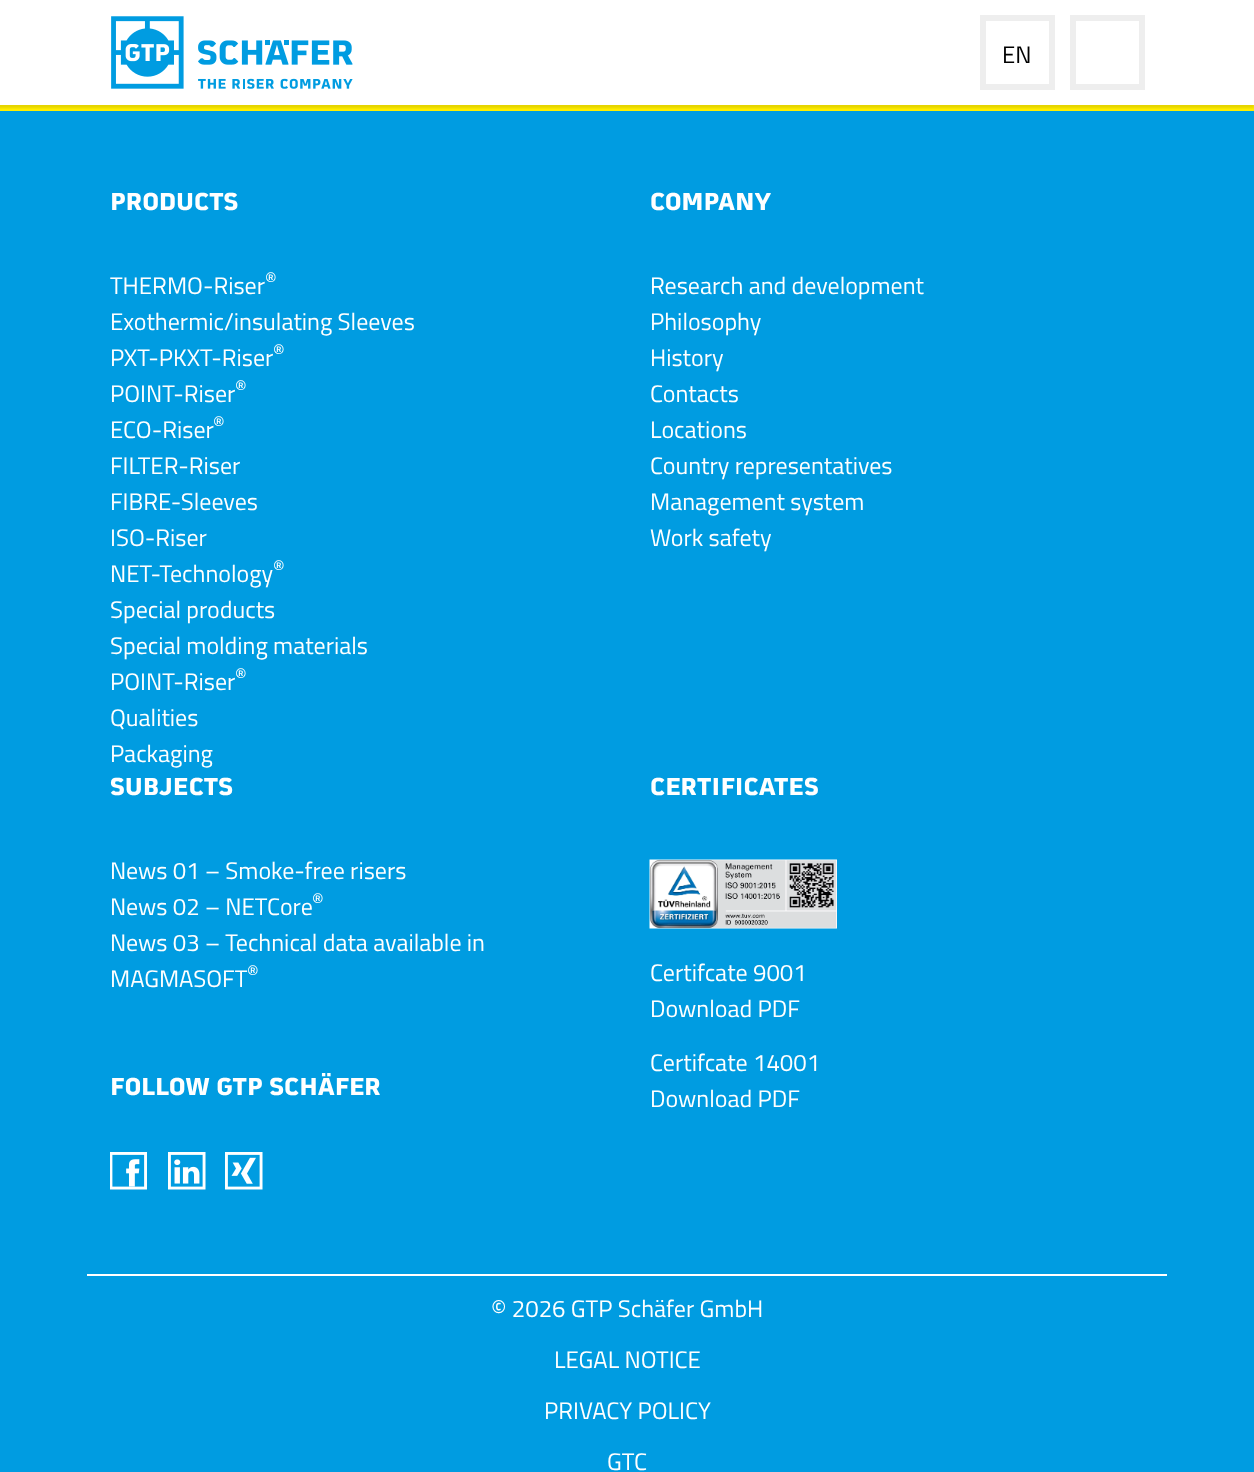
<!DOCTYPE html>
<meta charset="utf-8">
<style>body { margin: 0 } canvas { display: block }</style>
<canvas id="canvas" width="1254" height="1472"></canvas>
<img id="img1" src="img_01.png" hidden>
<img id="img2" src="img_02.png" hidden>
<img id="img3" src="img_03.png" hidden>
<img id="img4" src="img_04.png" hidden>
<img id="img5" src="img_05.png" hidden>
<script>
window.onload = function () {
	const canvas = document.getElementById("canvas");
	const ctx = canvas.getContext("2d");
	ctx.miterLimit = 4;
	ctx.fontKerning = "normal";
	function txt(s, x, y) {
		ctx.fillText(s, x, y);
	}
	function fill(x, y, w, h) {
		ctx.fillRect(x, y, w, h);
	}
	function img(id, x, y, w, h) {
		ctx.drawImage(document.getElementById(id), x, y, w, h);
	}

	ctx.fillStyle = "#FFFFFF";
	fill(0, 0, 1254, 1472);
	ctx.fillStyle = "#009CE1";
	fill(0, 111, 1254, 1361);
	ctx.fillStyle = "#FFED00";
	fill(0, 105, 1254, 6);
	ctx.save();
	ctx.beginPath();
	ctx.rect(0, 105, 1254, 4);
	ctx.clip();
	ctx.fillStyle = "rgba(0, 0, 0, 0.1)";
	ctx.filter = "blur(1px)";
	ctx.beginPath();
	ctx.rect(-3, 0, 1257, 108);
	ctx.fill();
	ctx.filter = "none";
	ctx.restore();
	img("img1", 111, 16, 242, 73);
	ctx.strokeStyle = "#EEEEEE";
	ctx.lineWidth = 6;
	ctx.strokeRect(983, 18, 69, 69);
	ctx.strokeRect(1073, 18, 69, 69);
	ctx.fillStyle = "#FFFFFF";
	fill(87, 1274, 1080, 2);
	img("img2", 110, 1152, 37, 38);
	img("img3", 168, 1152, 38, 38);
	img("img4", 225, 1152, 38, 38);
	img("img5", 649, 859, 188, 70);
	ctx.font = "24px Titillium Web";
	ctx.fillStyle = "#000000";
	txt("EN", 1002, 63);
	ctx.font = "24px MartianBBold";
	ctx.fillStyle = "#FFFFFF";
	txt("PRODUCTS", 110, 210);
	ctx.font = "24px Titillium Web";
	txt("THERMO-Riser", 110, 294);
	ctx.font = "18px Titillium Web";
	txt("®", 265, 285);
	ctx.font = "24px Titillium Web";
	txt("Exothermic/insulating Sleeves", 110, 330);
	txt("PXT-PKXT-Riser", 110, 366);
	ctx.font = "18px Titillium Web";
	txt("®", 273, 357);
	ctx.font = "24px Titillium Web";
	txt("POINT-Riser", 110, 402);
	ctx.font = "18px Titillium Web";
	txt("®", 235, 393);
	ctx.font = "24px Titillium Web";
	txt("ECO-Riser", 110, 438);
	ctx.font = "18px Titillium Web";
	txt("®", 213, 429);
	ctx.font = "24px Titillium Web";
	txt("FILTER-Riser", 110, 474);
	txt("FIBRE-Sleeves", 110, 510);
	txt("ISO-Riser", 110, 546);
	txt("NET-Technology", 110, 582);
	ctx.font = "18px Titillium Web";
	txt("®", 273, 573);
	ctx.font = "24px Titillium Web";
	txt("Special products", 110, 618);
	txt("Special molding materials", 110, 654);
	txt("POINT-Riser", 110, 690);
	ctx.font = "18px Titillium Web";
	txt("®", 235, 681);
	ctx.font = "24px Titillium Web";
	txt("Qualities", 110, 726);
	txt("Packaging", 110, 762);
	ctx.font = "24px MartianBBold";
	txt("COMPANY", 650, 210);
	ctx.font = "24px Titillium Web";
	txt("Research and development", 650, 294);
	txt("Philosophy", 650, 330);
	txt("History", 650, 366);
	txt("Contacts", 650, 402);
	txt("Locations", 650, 438);
	txt("Country representatives", 650, 474);
	txt("Management system", 650, 510);
	txt("Work safety", 650, 546);
	ctx.font = "24px MartianBBold";
	txt("SUBJECTS", 110, 795);
	ctx.font = "24px Titillium Web";
	txt("News 01 – Smoke-free risers", 110, 879);
	txt("News 02 – NETCore", 110, 915);
	ctx.font = "18px Titillium Web";
	txt("®", 312, 906);
	ctx.font = "24px Titillium Web";
	txt("News 03 – Technical data available in", 110, 951);
	txt("MAGMASOFT", 110, 987);
	ctx.font = "18px Titillium Web";
	txt("®", 247, 978);
	ctx.font = "24px MartianBBold";
	txt("FOLLOW GTP SCHÄFER", 110, 1095);
	txt("CERTIFICATES", 650, 795);
	ctx.font = "24px Titillium Web";
	txt("Certifcate 9001", 650, 981);
	txt("Download PDF", 650, 1017);
	txt("Certifcate 14001", 650, 1071);
	txt("Download PDF", 650, 1107);
	txt("© 2026 GTP Schäfer GmbH", 491, 1317);
	txt("LEGAL NOTICE", 554, 1368);
	txt("PRIVACY POLICY", 544, 1419);
	txt("GTC", 607, 1470);
};
</script>
